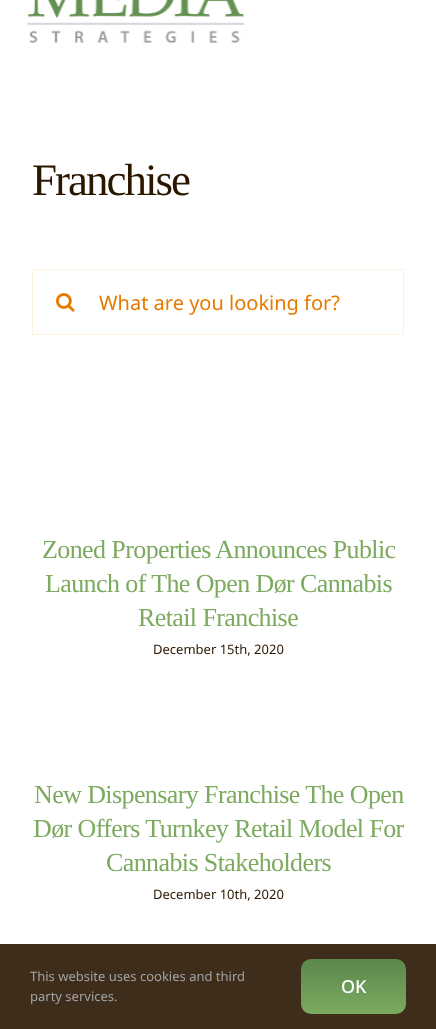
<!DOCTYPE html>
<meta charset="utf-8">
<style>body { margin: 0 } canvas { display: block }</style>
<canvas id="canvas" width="436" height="1029"></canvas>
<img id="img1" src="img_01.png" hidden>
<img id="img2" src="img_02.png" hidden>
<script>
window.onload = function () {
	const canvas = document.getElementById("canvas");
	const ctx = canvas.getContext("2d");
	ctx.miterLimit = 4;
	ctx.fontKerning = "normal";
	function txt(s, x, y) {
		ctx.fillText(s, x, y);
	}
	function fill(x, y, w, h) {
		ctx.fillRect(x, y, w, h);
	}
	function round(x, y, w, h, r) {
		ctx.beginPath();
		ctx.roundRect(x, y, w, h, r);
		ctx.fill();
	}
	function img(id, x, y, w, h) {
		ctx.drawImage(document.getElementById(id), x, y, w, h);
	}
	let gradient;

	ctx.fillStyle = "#FFFFFF";
	fill(0, 0, 436, 1029);
	img("img1", 26, 0, 219, 43);
	ctx.strokeStyle = "#FFF1E0";
	ctx.strokeRect(32.5, 269.5, 371, 65);
	img("img2", 56, 293, 19, 19);
	ctx.fillStyle = "#3E2D1A";
	fill(0, 944, 436, 85);
	gradient = ctx.createLinearGradient(354, 959, 354, 1014);
	gradient.addColorStop(0, "#5B874C");
	gradient.addColorStop(1, "#7CAA5F");
	ctx.fillStyle = gradient;
	round(301, 959, 105, 55, 10);
	ctx.letterSpacing = "-2px";
	ctx.font = "45px Liberation Serif";
	ctx.fillStyle = "#2B1700";
	txt("Franchise", 32, 195);
	ctx.letterSpacing = "0px";
	ctx.font = "20px Noto Sans";
	ctx.fillStyle = "#E67A00";
	txt("What are you looking for?", 99, 310);
	ctx.letterSpacing = "-0.6px";
	ctx.font = "26px Liberation Serif";
	ctx.fillStyle = "#7CAA5F";
	txt("Zoned Properties Announces Public", 42, 558);
	txt("Launch of The Open Dør Cannabis", 45, 592);
	txt("Retail Franchise", 138, 626);
	ctx.letterSpacing = "0px";
	ctx.font = "13px Noto Sans";
	ctx.fillStyle = "#2B1700";
	txt("December 15th, 2020", 153, 654);
	ctx.letterSpacing = "-0.6px";
	ctx.font = "26px Liberation Serif";
	ctx.fillStyle = "#7CAA5F";
	txt("New Dispensary Franchise The Open", 34, 803);
	txt("Dør Offers Turnkey Retail Model For", 33, 837);
	txt("Cannabis Stakeholders", 106, 871);
	ctx.letterSpacing = "0px";
	ctx.font = "13px Noto Sans";
	ctx.fillStyle = "#2B1700";
	txt("December 10th, 2020", 153, 899);
	ctx.fillStyle = "#A1A3A6";
	txt("This website uses cookies and third", 30, 981);
	txt("party services.", 30, 1001);
	ctx.font = "500 18px Noto Sans";
	ctx.fillStyle = "#FFFFFF";
	txt("OK", 341, 993);
};
</script>
